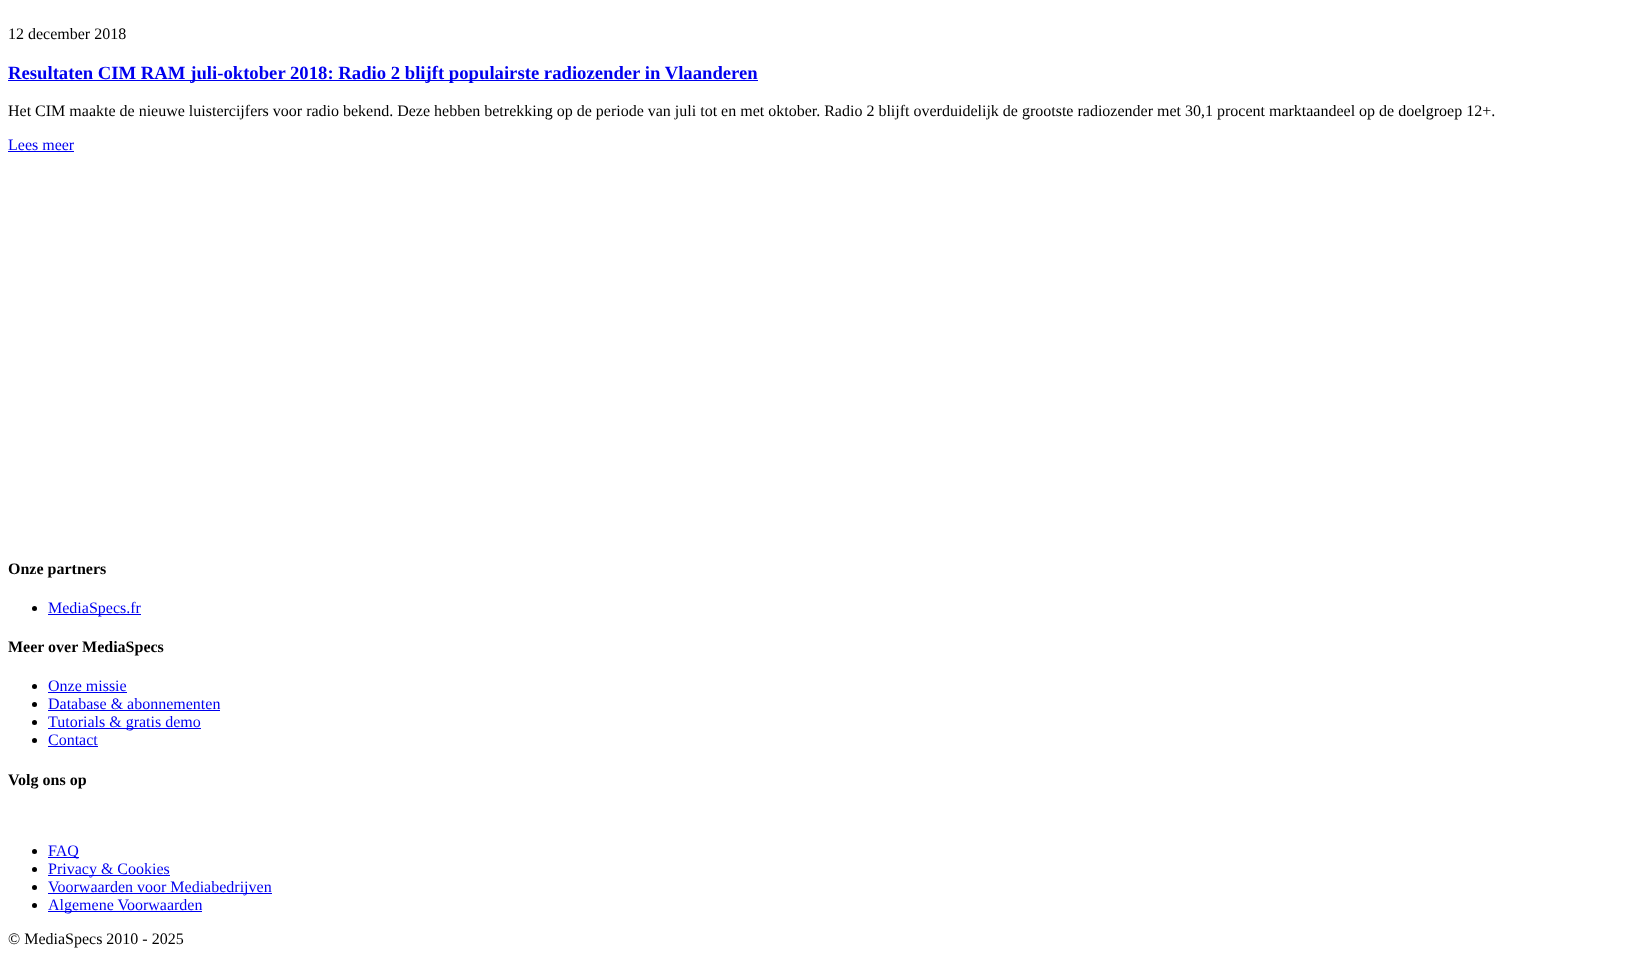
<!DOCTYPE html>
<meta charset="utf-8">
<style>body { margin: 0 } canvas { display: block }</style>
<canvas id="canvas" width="1635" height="956"></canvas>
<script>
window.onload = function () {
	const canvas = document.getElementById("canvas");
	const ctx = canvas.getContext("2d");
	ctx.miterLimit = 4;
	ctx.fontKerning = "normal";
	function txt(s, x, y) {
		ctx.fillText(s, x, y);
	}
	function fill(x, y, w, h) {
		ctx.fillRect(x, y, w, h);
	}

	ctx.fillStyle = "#FFFFFF";
	fill(0, 0, 1635, 956);
	ctx.fillStyle = "#0000EE";
	fill(8, 80, 750, 1);
	fill(8, 151, 66, 1);
	ctx.fillStyle = "#000000";
	ctx.beginPath();
	ctx.arc(34.5, 608.5, 2.5, 0, Math.PI * 2);
	ctx.fill();
	ctx.fillStyle = "#0000EE";
	fill(48, 614, 93, 1);
	ctx.fillStyle = "#000000";
	ctx.beginPath();
	ctx.arc(34.5, 686.5, 2.5, 0, Math.PI * 2);
	ctx.fill();
	ctx.fillStyle = "#0000EE";
	fill(48, 692, 79, 1);
	ctx.fillStyle = "#000000";
	ctx.beginPath();
	ctx.arc(34.5, 704.5, 2.5, 0, Math.PI * 2);
	ctx.fill();
	ctx.fillStyle = "#0000EE";
	fill(48, 710, 172, 1);
	ctx.fillStyle = "#000000";
	ctx.beginPath();
	ctx.arc(34.5, 722.5, 2.5, 0, Math.PI * 2);
	ctx.fill();
	ctx.fillStyle = "#0000EE";
	fill(48, 728, 153, 1);
	ctx.fillStyle = "#000000";
	ctx.beginPath();
	ctx.arc(34.5, 740.5, 2.5, 0, Math.PI * 2);
	ctx.fill();
	ctx.fillStyle = "#0000EE";
	fill(48, 746, 50, 1);
	ctx.fillStyle = "#000000";
	ctx.beginPath();
	ctx.arc(34.5, 851.5, 2.5, 0, Math.PI * 2);
	ctx.fill();
	ctx.fillStyle = "#0000EE";
	fill(48, 857, 31, 1);
	ctx.fillStyle = "#000000";
	ctx.beginPath();
	ctx.arc(34.5, 869.5, 2.5, 0, Math.PI * 2);
	ctx.fill();
	ctx.fillStyle = "#0000EE";
	fill(48, 875, 122, 1);
	ctx.fillStyle = "#000000";
	ctx.beginPath();
	ctx.arc(34.5, 887.5, 2.5, 0, Math.PI * 2);
	ctx.fill();
	ctx.fillStyle = "#0000EE";
	fill(48, 893, 224, 1);
	ctx.fillStyle = "#000000";
	ctx.beginPath();
	ctx.arc(34.5, 905.5, 2.5, 0, Math.PI * 2);
	ctx.fill();
	ctx.fillStyle = "#0000EE";
	fill(48, 911, 154, 1);
	ctx.font = "16px Liberation Serif";
	ctx.fillStyle = "#000000";
	txt("12 december 2018", 8, 39);
	ctx.font = "bold 18.7px Liberation Serif";
	ctx.fillStyle = "#0000EE";
	txt("Resultaten CIM RAM juli-oktober 2018: Radio 2 blijft populairste radiozender in Vlaanderen", 8, 79);
	ctx.font = "16px Liberation Serif";
	ctx.fillStyle = "#000000";
	txt("Het CIM maakte de nieuwe luistercijfers voor radio bekend. Deze hebben betrekking op de periode van juli tot en met oktober. Radio 2 blijft overduidelijk de grootste radiozender met 30,1 procent marktaandeel op de doelgroep 12+.", 8, 116);
	ctx.fillStyle = "#0000EE";
	txt("Lees meer", 8, 150);
	ctx.font = "bold 16px Liberation Serif";
	ctx.fillStyle = "#000000";
	txt("Onze partners", 8, 574);
	ctx.font = "16px Liberation Serif";
	ctx.fillStyle = "#0000EE";
	txt("MediaSpecs.fr", 48, 613);
	ctx.font = "bold 16px Liberation Serif";
	ctx.fillStyle = "#000000";
	txt("Meer over MediaSpecs", 8, 652);
	ctx.font = "16px Liberation Serif";
	ctx.fillStyle = "#0000EE";
	txt("Onze missie", 48, 691);
	txt("Database & abonnementen", 48, 709);
	txt("Tutorials & gratis demo", 48, 727);
	txt("Contact", 48, 745);
	ctx.font = "bold 16px Liberation Serif";
	ctx.fillStyle = "#000000";
	txt("Volg ons op", 8, 785);
	ctx.font = "16px Liberation Serif";
	ctx.fillStyle = "#0000EE";
	txt("FAQ", 48, 856);
	txt("Privacy & Cookies", 48, 874);
	txt("Voorwaarden voor Mediabedrijven", 48, 892);
	txt("Algemene Voorwaarden", 48, 910);
	ctx.fillStyle = "#000000";
	txt("© MediaSpecs 2010 - 2025", 8, 944);
};
</script>
